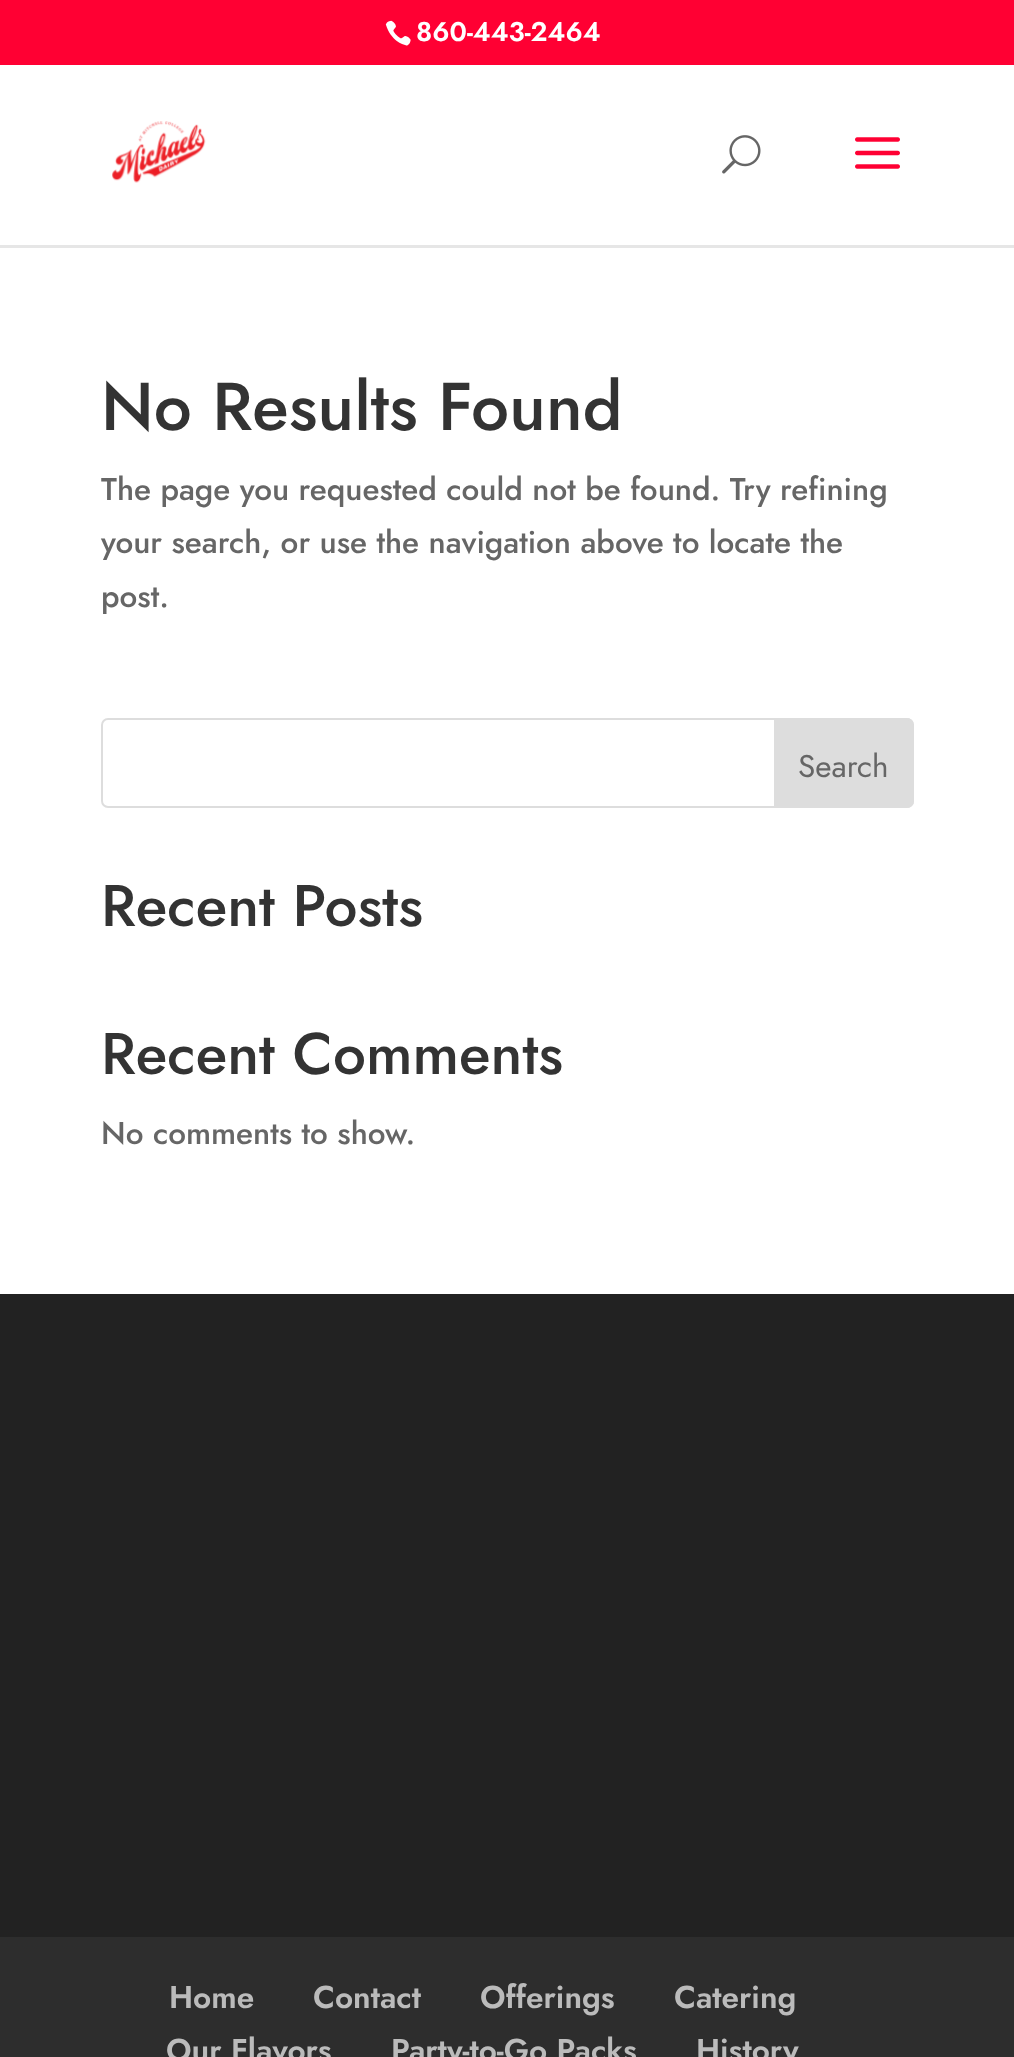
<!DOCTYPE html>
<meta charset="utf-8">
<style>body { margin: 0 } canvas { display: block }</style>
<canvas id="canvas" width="1014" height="2057"></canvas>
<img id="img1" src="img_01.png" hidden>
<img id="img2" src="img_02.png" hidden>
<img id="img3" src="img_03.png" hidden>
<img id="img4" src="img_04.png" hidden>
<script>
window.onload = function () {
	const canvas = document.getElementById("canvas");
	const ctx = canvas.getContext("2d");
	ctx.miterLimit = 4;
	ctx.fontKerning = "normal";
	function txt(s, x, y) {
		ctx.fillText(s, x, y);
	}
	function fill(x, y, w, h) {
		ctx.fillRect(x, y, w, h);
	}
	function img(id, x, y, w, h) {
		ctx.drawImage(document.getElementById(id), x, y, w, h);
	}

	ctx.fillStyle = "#FFFFFF";
	fill(0, 0, 1014, 2057);
	ctx.fillStyle = "#FF0033";
	fill(0, 0, 1014, 65);
	img("img1", 385, 20, 26, 26);
	ctx.fillStyle = "#E6E6E6";
	ctx.beginPath();
	ctx.moveTo(0, 245);
	ctx.lineTo(0, 248);
	ctx.lineTo(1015, 248);
	ctx.lineTo(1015, 68);
	ctx.lineTo(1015, 245);
	ctx.closePath();
	ctx.fill();
	img("img2", 112, 121, 94, 62);
	img("img3", 722, 135, 39, 39);
	img("img4", 855, 137, 45, 32);
	ctx.beginPath();
	ctx.roundRect(102, 719, 811, 88, 6);
	ctx.strokeStyle = "#DDDDDD";
	ctx.lineWidth = 2;
	ctx.stroke();
	ctx.fillStyle = "#DDDDDD";
	ctx.beginPath();
	ctx.roundRect(775, 719, 138, 88, [0, 6, 6, 0]);
	ctx.fill();
	ctx.stroke();
	ctx.fillStyle = "#222222";
	fill(0, 1294, 1014, 643);
	ctx.fillStyle = "#2D2D2D";
	fill(0, 1937, 1014, 120);
	ctx.font = "600 27px Jost";
	ctx.fillStyle = "#FFFFFF";
	txt("860-443-2464", 416, 41);
	ctx.font = "500 67.5px Jost";
	ctx.fillStyle = "#333333";
	txt("No Results Found", 101, 430);
	ctx.font = "500 31.5px Jost";
	ctx.fillStyle = "#666666";
	txt("The page you requested could not be found. Try refining", 101, 500);
	txt("your search, or use the navigation above to locate the", 101, 553);
	txt("post.", 101, 607);
	ctx.font = "31.5px Jost";
	txt("Search", 798, 777);
	ctx.font = "500 58.5px Jost";
	ctx.fillStyle = "#333333";
	txt("Recent Posts", 101, 926);
	txt("Recent Comments", 101, 1074);
	ctx.font = "500 31.5px Jost";
	ctx.fillStyle = "#666666";
	txt("No comments to show.", 101, 1144);
	ctx.font = "600 31.5px Jost";
	ctx.fillStyle = "#BBBBBB";
	txt("Home", 169, 2008);
	txt("Contact", 313, 2008);
	txt("Offerings", 480, 2008);
	txt("Catering", 674, 2008);
	txt("Our Flavors", 166, 2061);
	txt("Party-to-Go Packs", 391, 2061);
	txt("History", 696, 2061);
};
</script>
